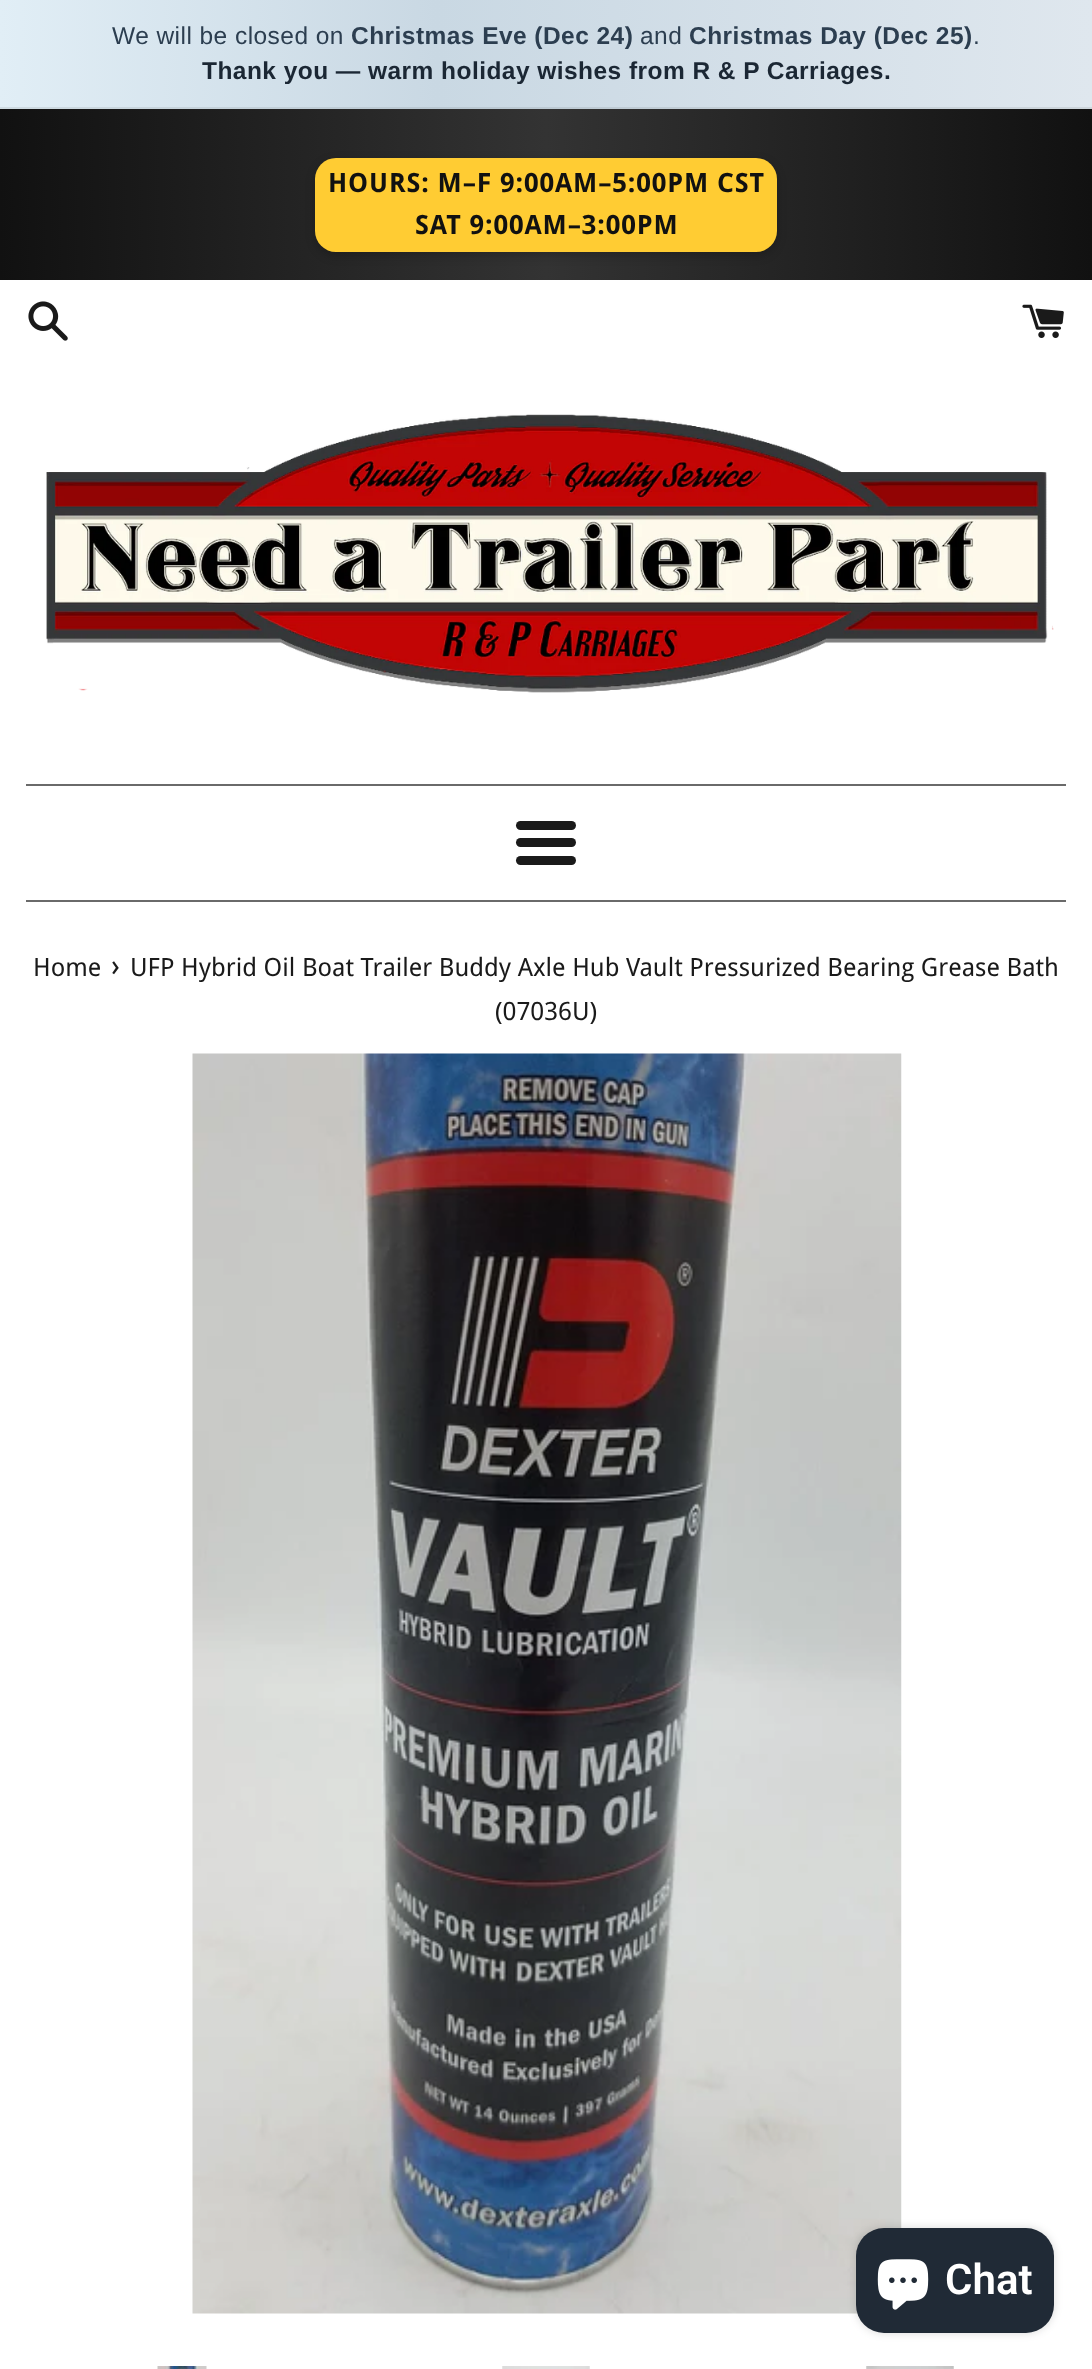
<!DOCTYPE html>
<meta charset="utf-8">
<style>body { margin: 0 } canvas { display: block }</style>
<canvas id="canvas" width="1092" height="2369"></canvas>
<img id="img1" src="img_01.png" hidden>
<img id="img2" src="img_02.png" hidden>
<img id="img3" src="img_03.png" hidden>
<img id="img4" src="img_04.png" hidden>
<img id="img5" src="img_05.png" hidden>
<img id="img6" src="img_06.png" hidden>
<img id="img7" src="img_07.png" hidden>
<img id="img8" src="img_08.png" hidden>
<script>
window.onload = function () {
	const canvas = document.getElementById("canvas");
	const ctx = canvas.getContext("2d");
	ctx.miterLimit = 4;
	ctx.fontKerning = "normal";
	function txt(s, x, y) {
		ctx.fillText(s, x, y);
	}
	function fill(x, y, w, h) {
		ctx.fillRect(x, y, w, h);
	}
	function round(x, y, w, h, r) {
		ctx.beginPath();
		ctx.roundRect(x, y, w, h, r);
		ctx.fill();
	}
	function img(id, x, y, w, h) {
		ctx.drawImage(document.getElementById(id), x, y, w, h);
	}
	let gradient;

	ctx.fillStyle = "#FFFFFF";
	fill(0, 0, 1092, 2369);
	gradient = ctx.createLinearGradient(0, 53, 1092, 53);
	gradient.addColorStop(0, "#E1EEF6");
	gradient.addColorStop(0.4, "#C9D8E3");
	gradient.addColorStop(1, "#DFE7EE");
	ctx.fillStyle = gradient;
	fill(0, 0, 1092, 107);
	gradient = ctx.createLinearGradient(0, 53, 1092, 53);
	gradient.addColorStop(0, "#CFDBE2");
	gradient.addColorStop(0.4, "#B9C7D1");
	gradient.addColorStop(1, "#CDD5DB");
	ctx.fillStyle = gradient;
	fill(0, 107, 1092, 2);
	gradient = ctx.createLinearGradient(0, 194, 1092, 194);
	gradient.addColorStop(0, "#111111");
	gradient.addColorStop(0.5, "#333333");
	gradient.addColorStop(1, "#111111");
	ctx.fillStyle = gradient;
	fill(0, 109, 1092, 171);
	ctx.fillStyle = "rgba(0, 0, 0, 0.2)";
	ctx.filter = "blur(5px)";
	ctx.beginPath();
	ctx.roundRect(315, 161, 462, 95, 21);
	ctx.fill();
	ctx.filter = "none";
	ctx.fillStyle = "#FFCC33";
	round(315, 158, 462, 94, 21);
	img("img1", 28, 301, 40, 40);
	img("img2", 1022, 304, 42, 34);
	img("img3", 46, 414, 1008, 279);
	ctx.fillStyle = "#6A6A6A";
	fill(26, 784, 1040, 2);
	ctx.fillStyle = "#1A1A1A";
	round(516, 821, 60, 9, 4.5);
	round(516, 838, 60, 9, 4.5);
	round(516, 856, 60, 9, 4.5);
	ctx.fillStyle = "#6A6A6A";
	fill(26, 900, 1040, 2);
	img("img4", 192, 1053, 710, 1261);
	img("img5", 157, 2366, 50, 3);
	img("img6", 502, 2366, 88, 3);
	img("img7", 866, 2366, 88, 3);
	ctx.fillStyle = "rgba(0, 0, 0, 0.15)";
	ctx.filter = "blur(4.5px)";
	ctx.beginPath();
	ctx.roundRect(856, 2228, 198, 105, 28);
	ctx.fill();
	ctx.filter = "none";
	ctx.fillStyle = "#202A36";
	round(856, 2228, 198, 105, 28);
	img("img8", 877, 2259, 52, 51);
	ctx.letterSpacing = "0.45px";
	ctx.font = "24.5px Liberation Sans";
	ctx.fillStyle = "#2C3E50";
	txt("We will be closed on", 112, 44);
	ctx.font = "bold 24.5px Liberation Sans";
	txt("Christmas Eve (Dec 24)", 351, 44);
	ctx.font = "24.5px Liberation Sans";
	txt("and", 640, 44);
	ctx.font = "bold 24.5px Liberation Sans";
	txt("Christmas Day (Dec 25)", 689, 44);
	ctx.font = "24.5px Liberation Sans";
	txt(".", 973, 44);
	ctx.font = "bold 24.5px Liberation Sans";
	ctx.fillStyle = "#1B2734";
	txt("Thank you — warm holiday wishes from R & P Carriages.", 202, 79);
	ctx.letterSpacing = "0.9px";
	ctx.font = "bold 26.5px Droid Sans";
	ctx.fillStyle = "#111111";
	txt("HOURS: M–F 9:00AM–5:00PM CST", 328, 192);
	txt("SAT 9:00AM–3:00PM", 415, 234);
	ctx.letterSpacing = "0px";
	ctx.font = "25.2px Droid Sans";
	ctx.fillStyle = "#1A1A1A";
	txt("Home", 33, 976);
	ctx.font = "31px Droid Sans";
	txt("›", 111, 976);
	ctx.font = "25.2px Droid Sans";
	txt("UFP Hybrid Oil Boat Trailer Buddy Axle Hub Vault Pressurized Bearing Grease Bath", 130, 976);
	txt("(07036U)", 495, 1020);
	ctx.font = "600 42px Roboto";
	ctx.fillStyle = "#FFFFFF";
	txt("Chat", 945, 2294);
};
</script>
